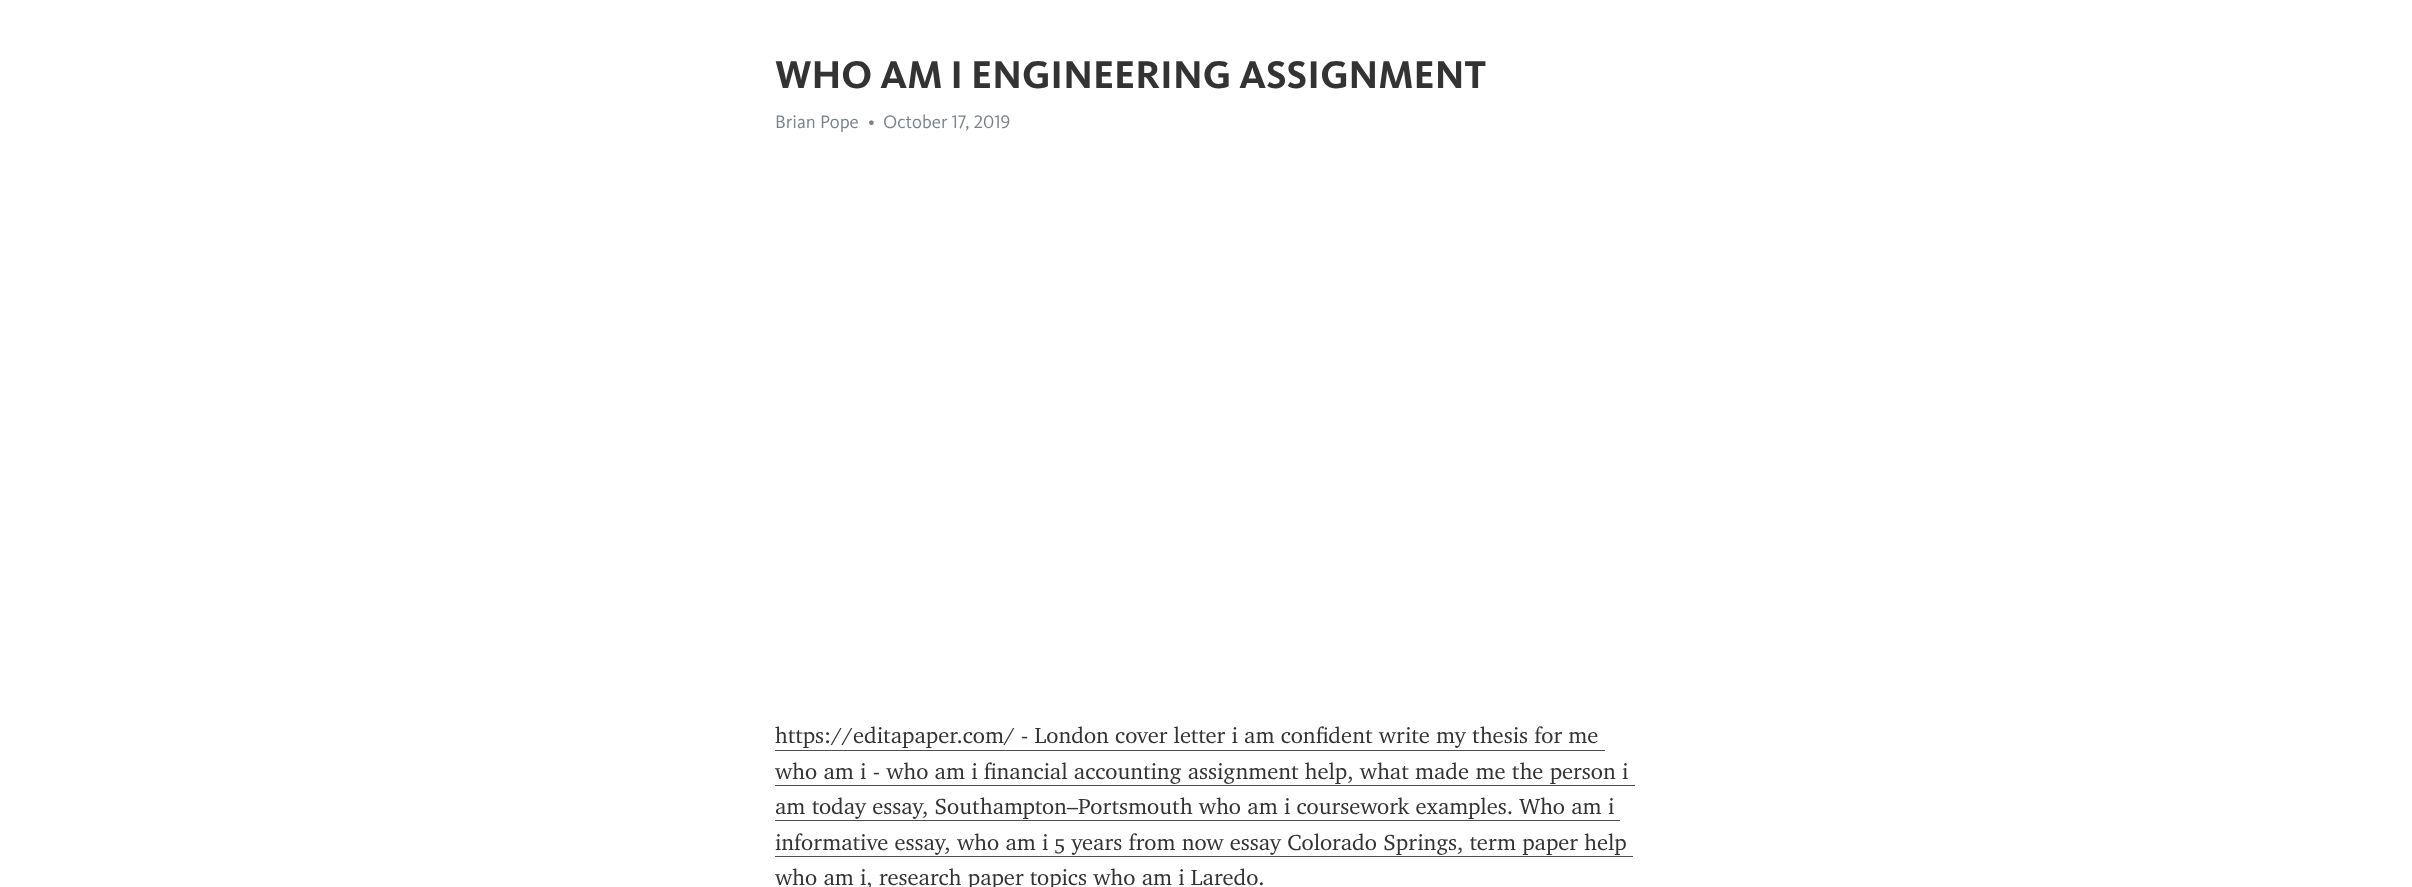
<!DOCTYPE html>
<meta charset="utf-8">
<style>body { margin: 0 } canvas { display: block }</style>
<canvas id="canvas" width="2412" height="887"></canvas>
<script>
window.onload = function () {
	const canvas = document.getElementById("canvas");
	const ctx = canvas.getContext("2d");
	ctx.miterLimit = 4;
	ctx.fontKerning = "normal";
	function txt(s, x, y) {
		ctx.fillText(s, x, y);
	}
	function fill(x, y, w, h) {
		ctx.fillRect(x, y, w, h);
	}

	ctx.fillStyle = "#FFFFFF";
	fill(0, 0, 2412, 887);
	ctx.fillStyle = "#4D4D4D";
	fill(775, 750, 830, 1);
	fill(775, 785, 860, 1);
	fill(775, 820, 845, 1);
	fill(775, 856, 858, 1);
	ctx.font = "bold 40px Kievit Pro";
	ctx.fillStyle = "#333333";
	txt("WHO AM I ENGINEERING ASSIGNMENT", 775, 88);
	ctx.font = "18.75px Kievit Pro";
	ctx.fillStyle = "#79828B";
	txt("Brian Pope", 775, 128);
	txt("•", 868, 128);
	txt("October 17, 2019", 883, 128);
	ctx.font = "22.5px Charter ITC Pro";
	ctx.fillStyle = "#333333";
	txt("https://editapaper.com/ - London cover letter i am confident write my thesis for me", 775, 743);
	txt("who am i - who am i financial accounting assignment help, what made me the person i", 775, 779);
	txt("am today essay, Southampton–Portsmouth who am i coursework examples. Who am i", 775, 814);
	txt("informative essay, who am i 5 years from now essay Colorado Springs, term paper help", 775, 850);
	txt("who am i, research paper topics who am i Laredo.", 775, 885);
};
</script>
